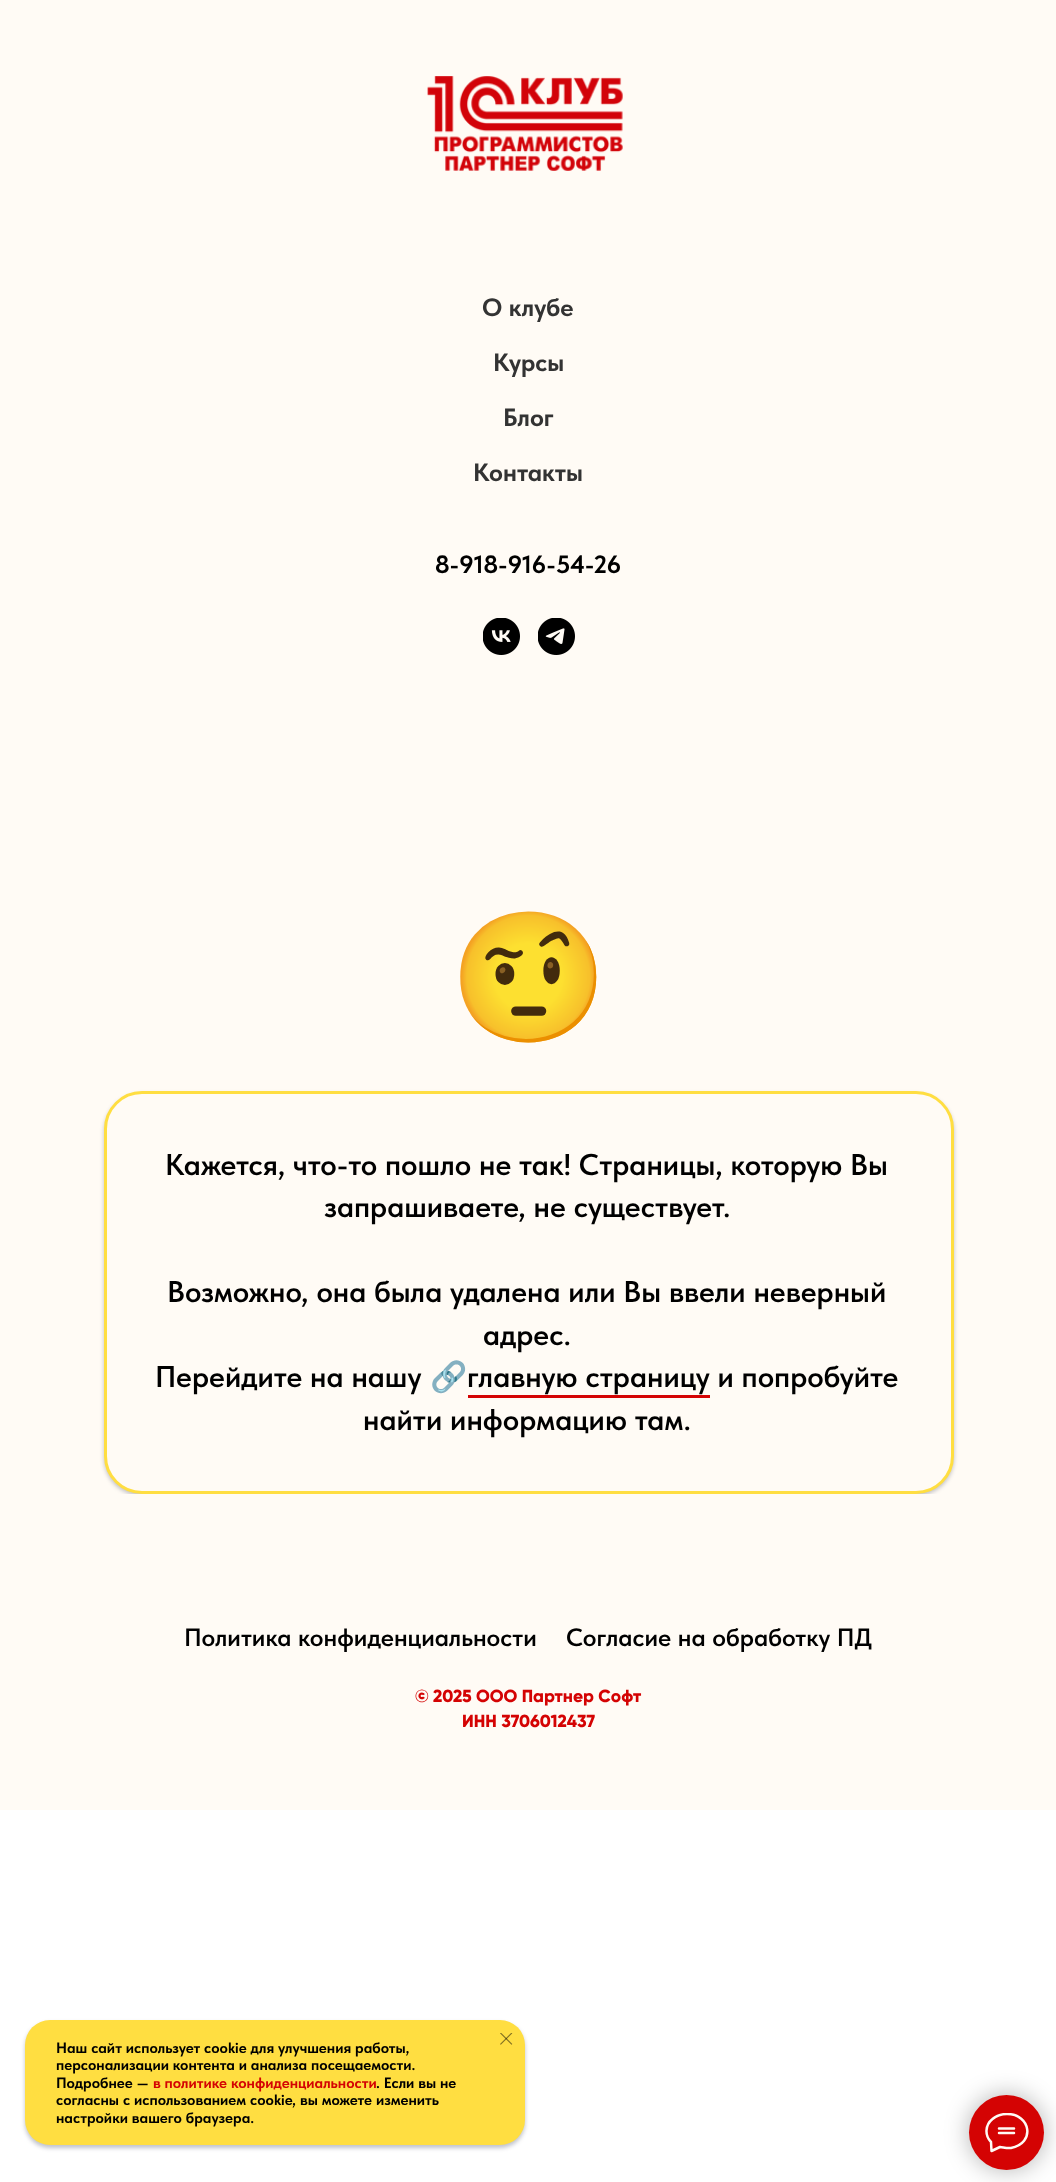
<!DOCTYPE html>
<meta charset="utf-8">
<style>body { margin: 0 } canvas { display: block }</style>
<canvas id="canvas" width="1056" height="2182"></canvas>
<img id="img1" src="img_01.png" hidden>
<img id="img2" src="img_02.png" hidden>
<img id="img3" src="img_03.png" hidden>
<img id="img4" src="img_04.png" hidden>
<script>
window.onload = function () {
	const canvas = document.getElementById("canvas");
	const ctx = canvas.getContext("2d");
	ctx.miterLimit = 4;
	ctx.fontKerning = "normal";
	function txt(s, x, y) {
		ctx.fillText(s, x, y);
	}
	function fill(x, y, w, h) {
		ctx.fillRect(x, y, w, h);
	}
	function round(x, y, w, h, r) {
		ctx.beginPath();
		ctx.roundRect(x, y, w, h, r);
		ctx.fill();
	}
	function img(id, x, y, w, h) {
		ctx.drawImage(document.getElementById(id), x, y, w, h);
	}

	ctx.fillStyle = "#FFFFFF";
	fill(0, 0, 1056, 2182);
	ctx.fillStyle = "#FFFBF5";
	fill(0, 0, 1056, 1494);
	img("img1", 427, 76, 196, 95);
	img("img2", 483, 618, 37, 37);
	img("img3", 538, 618, 37, 37);
	ctx.fillStyle = "rgba(0, 11, 48, 0.25)";
	ctx.filter = "blur(2px)";
	ctx.beginPath();
	ctx.roundRect(104, 1094, 850, 402, 38);
	ctx.fill();
	ctx.filter = "none";
	ctx.fillStyle = "#FFFBF5";
	ctx.beginPath();
	ctx.roundRect(105.5, 1092.5, 847, 400, 36.5);
	ctx.fill();
	ctx.strokeStyle = "#FFDE41";
	ctx.lineWidth = 3;
	ctx.stroke();
	ctx.fillStyle = "#D40303";
	fill(468, 1395, 242, 3);
	ctx.fillStyle = "#FFFBF5";
	fill(0, 1494, 1056, 316);
	ctx.fillStyle = "rgba(0, 11, 48, 0.25)";
	ctx.filter = "blur(2px)";
	ctx.beginPath();
	ctx.roundRect(25, 2023, 500, 125, 25);
	ctx.fill();
	ctx.filter = "none";
	ctx.fillStyle = "#FFDE41";
	round(25, 2020, 500, 125, 25);
	img("img4", 500, 2033, 13, 12);
	ctx.fillStyle = "rgba(0, 0, 0, 0.3)";
	ctx.filter = "blur(12.5px)";
	ctx.beginPath();
	ctx.roundRect(969, 2095, 75, 75, 37.5);
	ctx.fill();
	ctx.filter = "none";
	ctx.fillStyle = "#D40303";
	ctx.beginPath();
	ctx.arc(1006.5, 2132.5, 37.5, 0, Math.PI * 2);
	ctx.fill();
	ctx.save();
	ctx.beginPath();
	ctx.rect(985, 2113, 44, 40);
	ctx.clip();
	ctx.beginPath();
	ctx.moveTo(999, 2128.5);
	ctx.lineTo(1014, 2128.5);
	ctx.moveTo(999, 2133);
	ctx.lineTo(1014, 2133);
	ctx.moveTo(991, 2142);
	ctx.bezierCurveTo(984.5, 2135.5, 985, 2125, 992.5, 2119);
	ctx.bezierCurveTo(996.5, 2115.5, 1001.5, 2114, 1007, 2114);
	ctx.bezierCurveTo(1031, 2114, 1035.5, 2143.5, 1011, 2148);
	ctx.bezierCurveTo(1007, 2148.5, 1004, 2147.5, 1000, 2147);
	ctx.lineTo(991.5, 2151);
	ctx.closePath();
	ctx.strokeStyle = "#FFFBF5";
	ctx.lineWidth = 2.5;
	ctx.lineCap = "round";
	ctx.lineJoin = "round";
	ctx.stroke();
	ctx.restore();
	ctx.font = "bold 25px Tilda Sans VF";
	ctx.fillStyle = "#333333";
	txt("О клубе", 482, 316);
	txt("Курсы", 493, 371);
	txt("Блог", 503, 426);
	txt("Контакты", 473, 481);
	ctx.fillStyle = "#000000";
	txt("8-918-916-54-26", 435, 573);
	ctx.font = "bold 128px Noto Color Emoji";
	txt("🤨", 449, 1022);
	ctx.font = "600 30px Tilda Sans VF";
	txt("Кажется, что-то пошло не так! Страницы, которую Вы", 165, 1175);
	txt("запрашиваете, не существует.", 324, 1217);
	txt("Возможно, она была удалена или Вы ввели неверный", 167, 1302);
	txt("адрес.", 483, 1345);
	txt("Перейдите на нашу", 155, 1387);
	ctx.font = "bold 30px Noto Color Emoji";
	txt("🔗", 430, 1387);
	ctx.font = "600 30px Tilda Sans VF";
	txt("главную страницу и попробуйте", 467, 1387);
	txt("найти информацию там.", 363, 1430);
	ctx.font = "600 25px Tilda Sans VF";
	txt("Политика конфиденциальности", 184, 1646);
	txt("Согласие на обработку ПД", 566, 1646);
	ctx.font = "800 17.5px Gilroy";
	ctx.fillStyle = "#D40303";
	txt("© 2025 ООО Партнер Софт", 415, 1702);
	txt("ИНН 3706012437", 462, 1727);
	ctx.font = "bold 15px Tilda Sans VF";
	ctx.fillStyle = "#000000";
	txt("Наш сайт использует cookie для улучшения работы,", 56, 2053);
	txt("персонализации контента и анализа посещаемости.", 56, 2070);
	txt("Подробнее —", 56, 2088);
	ctx.fillStyle = "#D40303";
	txt("в политике конфиденциальности", 153, 2088);
	ctx.fillStyle = "#000000";
	txt(". Если вы не", 376, 2088);
	txt("согласны с использованием cookie, вы можете изменить", 56, 2105);
	txt("настройки вашего браузера.", 56, 2123);
};
</script>
